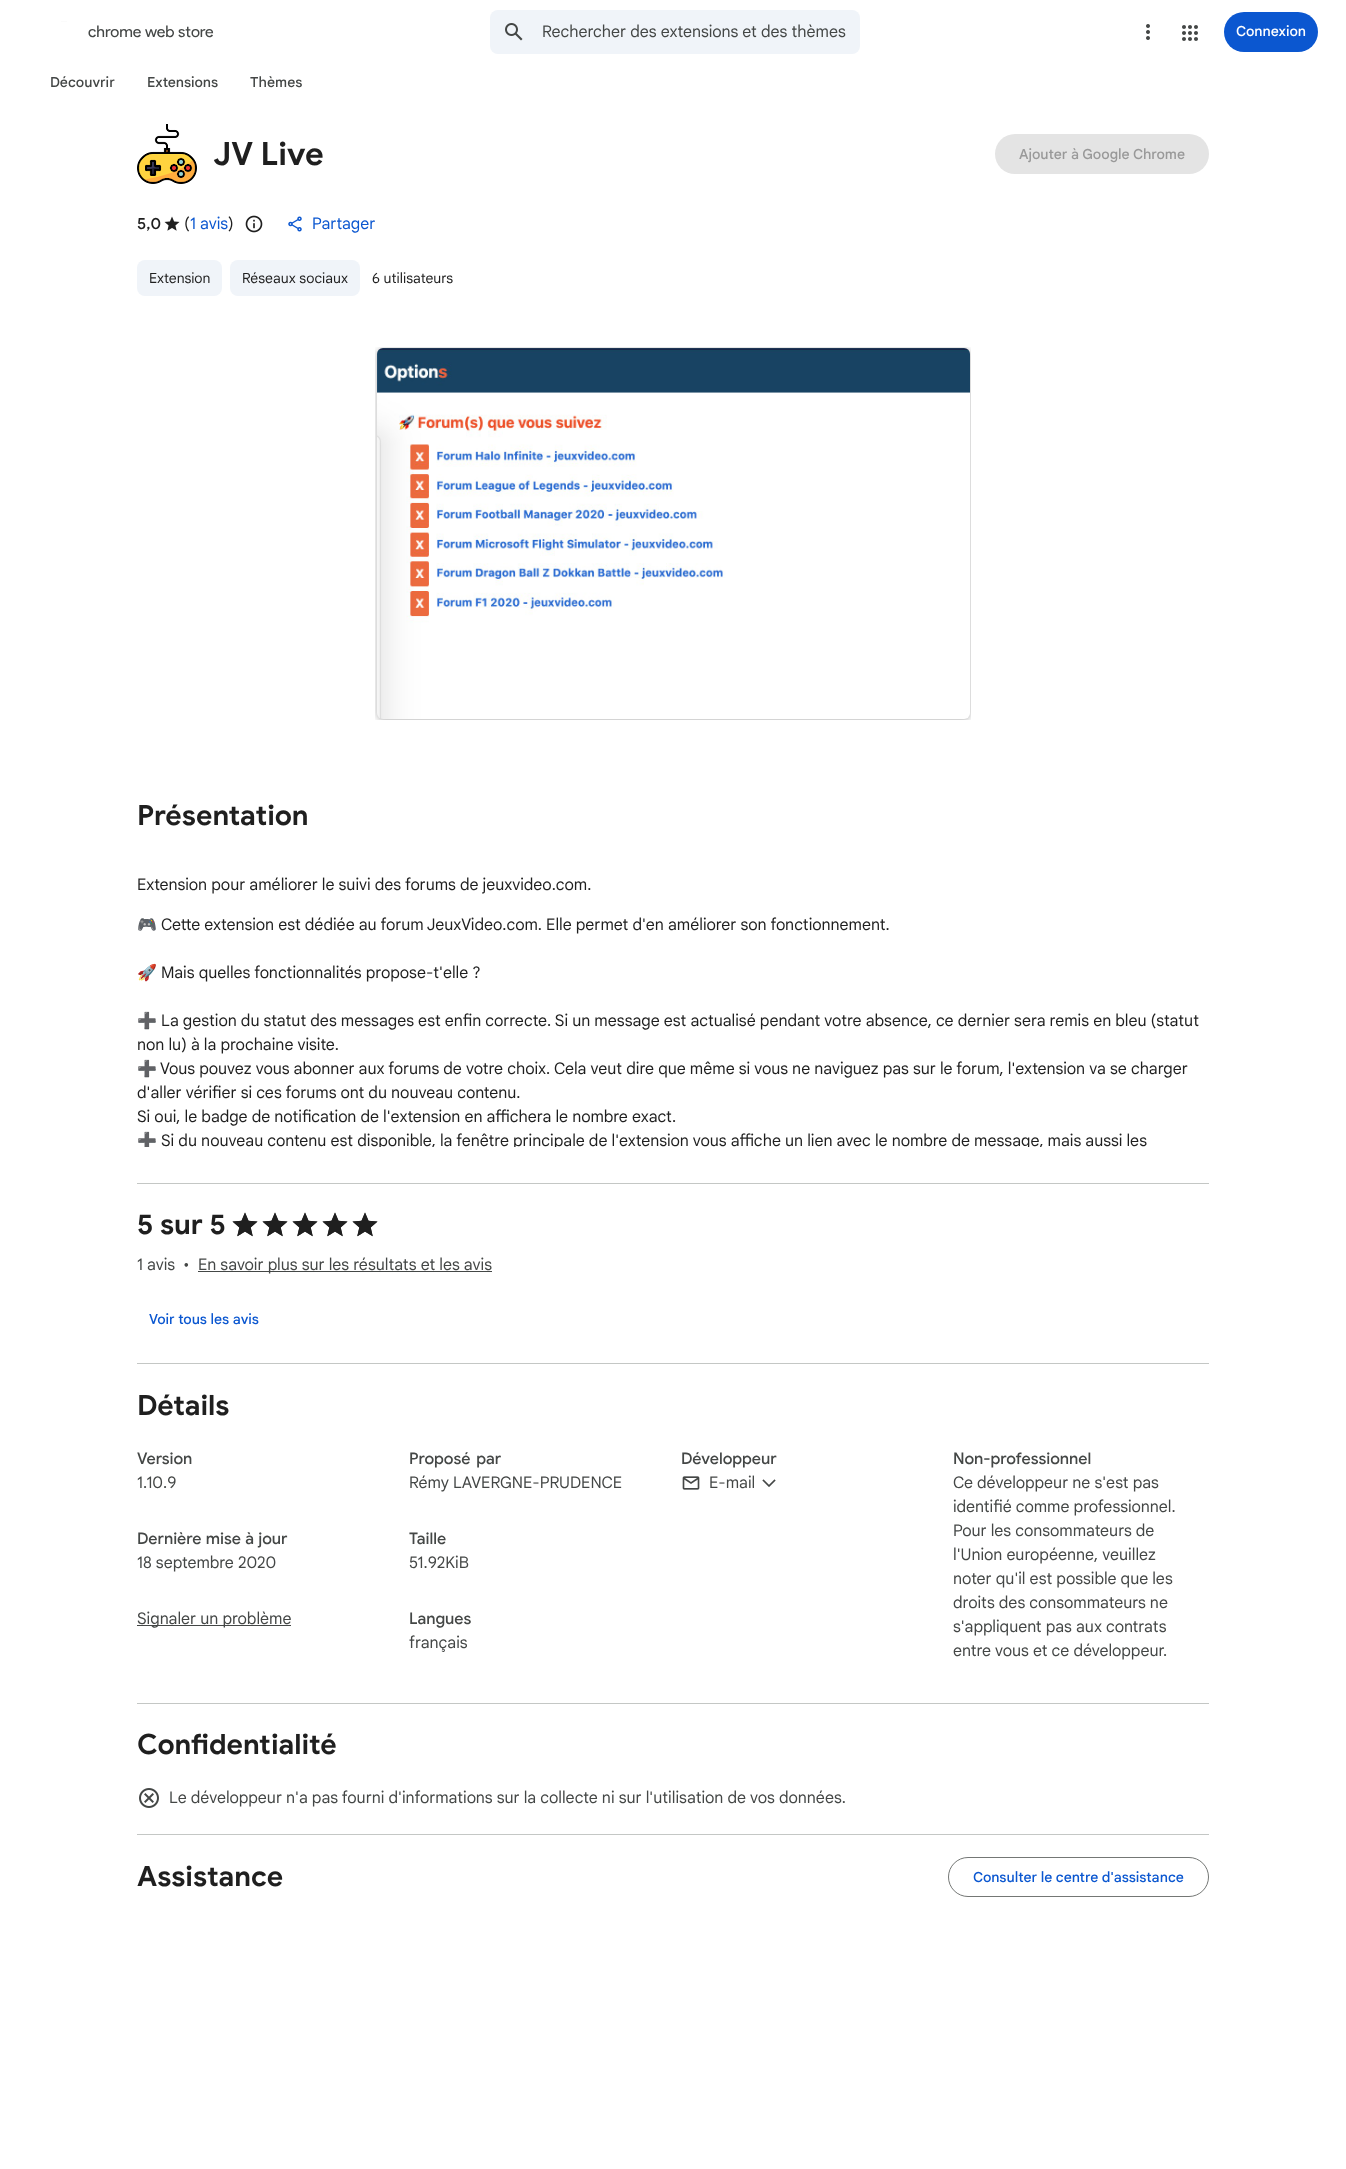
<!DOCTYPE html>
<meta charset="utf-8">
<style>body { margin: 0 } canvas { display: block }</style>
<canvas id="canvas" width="1346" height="2169"></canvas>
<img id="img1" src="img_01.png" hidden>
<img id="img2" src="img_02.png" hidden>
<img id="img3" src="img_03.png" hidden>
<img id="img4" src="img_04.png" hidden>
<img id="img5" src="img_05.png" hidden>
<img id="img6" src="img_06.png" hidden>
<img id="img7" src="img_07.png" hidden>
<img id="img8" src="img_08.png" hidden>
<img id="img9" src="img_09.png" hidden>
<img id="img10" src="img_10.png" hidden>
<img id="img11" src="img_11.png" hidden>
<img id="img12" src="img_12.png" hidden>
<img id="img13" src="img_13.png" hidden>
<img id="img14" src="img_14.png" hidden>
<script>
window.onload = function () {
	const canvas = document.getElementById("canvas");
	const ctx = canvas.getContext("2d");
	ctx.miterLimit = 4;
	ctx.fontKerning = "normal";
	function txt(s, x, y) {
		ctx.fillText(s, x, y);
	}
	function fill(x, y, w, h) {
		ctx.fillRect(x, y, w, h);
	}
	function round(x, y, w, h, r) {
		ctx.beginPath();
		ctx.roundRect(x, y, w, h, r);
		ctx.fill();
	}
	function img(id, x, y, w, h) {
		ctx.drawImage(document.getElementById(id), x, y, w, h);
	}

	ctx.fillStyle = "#FFFFFF";
	fill(0, 0, 1346, 2169);
	img("img1", 61, 21, 6, 1);
	ctx.fillStyle = "#F0F4F9";
	round(490, 10, 370, 44, 8);
	img("img2", 505, 23, 18, 18);
	img("img3", 1146, 24, 4, 16);
	img("img4", 1182, 25, 16, 16);
	ctx.fillStyle = "#0B57D0";
	round(1224, 12, 94, 40, 20);
	img("img5", 137, 124, 60, 60);
	ctx.fillStyle = "#E4E4E4";
	round(995, 134, 214, 40, 20);
	img("img6", 164, 216, 16, 15);
	img("img7", 245, 215, 18, 18);
	img("img8", 288, 216, 14, 16);
	ctx.fillStyle = "#F0F4F9";
	round(137, 260, 85, 36, 8);
	round(230, 260, 130, 36, 8);
	img("img9", 375, 347, 596, 373);
	ctx.fillStyle = "#C4C7C5";
	fill(137, 1183, 1072, 1);
	fill(137, 1363, 1072, 1);
	img("img10", 232, 1212, 26, 25);
	img("img10", 262, 1212, 26, 25);
	img("img10", 292, 1212, 26, 25);
	img("img10", 322, 1212, 26, 25);
	img("img10", 352, 1212, 26, 25);
	img("img11", 232, 1212, 26, 25);
	img("img11", 262, 1212, 26, 25);
	img("img11", 292, 1212, 26, 25);
	img("img11", 322, 1212, 26, 25);
	img("img11", 352, 1212, 26, 25);
	ctx.fillStyle = "#444746";
	fill(198, 1271, 294, 1);
	ctx.fillStyle = "#C4C7C5";
	fill(137, 1703, 1072, 1);
	img("img12", 682, 1476, 18, 14);
	img("img13", 762, 1479, 14, 8);
	ctx.fillStyle = "#444746";
	fill(137, 1625, 154, 1);
	ctx.fillStyle = "#C4C7C5";
	fill(137, 1834, 1072, 1);
	img("img14", 139, 1788, 20, 20);
	ctx.beginPath();
	ctx.roundRect(948.5, 1857.5, 260, 39, 19.5);
	ctx.strokeStyle = "#747775";
	ctx.stroke();
	ctx.font = "16px Product Sans";
	ctx.fillStyle = "#444746";
	txt("chrome web store", 88, 37);
	ctx.font = "16px Google Sans";
	txt("Rechercher des extensions et des thèmes", 542, 37);
	ctx.font = "500 14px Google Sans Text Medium";
	ctx.fillStyle = "#FFFFFF";
	txt("Connexion", 1236, 36);
	ctx.fillStyle = "#444746";
	txt("Découvrir", 50, 87);
	txt("Extensions", 147, 87);
	txt("Thèmes", 250, 87);
	ctx.font = "bold 32px Google Sans";
	ctx.fillStyle = "#1F1F1F";
	txt("JV Live", 213, 165);
	ctx.font = "500 14px Google Sans Text Medium";
	ctx.fillStyle = "#999999";
	txt("Ajouter à Google Chrome", 1019, 159);
	ctx.font = "500 16px Google Sans";
	ctx.fillStyle = "#1F1F1F";
	txt("5,0", 137, 229);
	ctx.font = "16px Google Sans";
	txt("(", 184, 229);
	ctx.fillStyle = "#0B57D0";
	txt("1 avis", 190, 229);
	ctx.fillStyle = "#1F1F1F";
	txt(")", 228, 229);
	ctx.font = "16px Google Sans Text";
	ctx.fillStyle = "#0B57D0";
	txt("Partager", 312, 229);
	ctx.font = "14px Google Sans";
	ctx.fillStyle = "#1F1F1F";
	txt("Extension", 149, 283);
	txt("Réseaux sociaux", 242, 283);
	txt("6 utilisateurs", 372, 283);
	ctx.font = "bold 28px Google Sans";
	txt("Présentation", 137, 825);
	ctx.font = "16px Google Sans";
	txt("Extension pour améliorer le suivi des forums de jeuxvideo.com.", 137, 890);
	ctx.font = "16px Noto Color Emoji";
	txt("🎮", 137, 930);
	ctx.font = "16px Google Sans";
	txt("Cette extension est dédiée au forum JeuxVideo.com. Elle permet d'en améliorer son fonctionnement.", 161, 930);
	ctx.font = "16px Noto Color Emoji";
	txt("🚀", 137, 978);
	ctx.font = "16px Google Sans";
	txt("Mais quelles fonctionnalités propose-t'elle ?", 161, 978);
	ctx.font = "16px Noto Color Emoji";
	txt("➕", 137, 1026);
	ctx.font = "16px Google Sans";
	txt("La gestion du statut des messages est enfin correcte. Si un message est actualisé pendant votre absence, ce dernier sera remis en bleu (statut", 161, 1026);
	txt("non lu) à la prochaine visite.", 137, 1050);
	ctx.font = "16px Noto Color Emoji";
	txt("➕", 137, 1074);
	ctx.font = "16px Google Sans";
	txt("Vous pouvez vous abonner aux forums de votre choix. Cela veut dire que même si vous ne naviguez pas sur le forum, l'extension va se charger", 160, 1074);
	txt("d'aller vérifier si ces forums ont du nouveau contenu.", 137, 1098);
	txt("Si oui, le badge de notification de l'extension en affichera le nombre exact.", 137, 1122);
	ctx.save();
	ctx.beginPath();
	ctx.rect(137, 857, 1072, 290);
	ctx.clip();
	ctx.font = "16px Noto Color Emoji";
	txt("➕", 137, 1146);
	ctx.font = "16px Google Sans";
	txt("Si du nouveau contenu est disponible, la fenêtre principale de l'extension vous affiche un lien avec le nombre de message, mais aussi les", 161, 1146);
	ctx.restore();
	ctx.font = "bold 28px Google Sans";
	txt("5 sur 5", 137, 1234);
	ctx.font = "16px Google Sans";
	ctx.fillStyle = "#444746";
	txt("1 avis", 137, 1270);
	txt("•", 183, 1270);
	txt("En savoir plus sur les résultats et les avis", 198, 1270);
	ctx.font = "500 14px Google Sans Text Medium";
	ctx.fillStyle = "#0B57D0";
	txt("Voir tous les avis", 149, 1324);
	ctx.font = "bold 28px Google Sans";
	ctx.fillStyle = "#1F1F1F";
	txt("Détails", 137, 1415);
	ctx.font = "500 16px Google Sans";
	ctx.fillStyle = "#444746";
	txt("Version", 137, 1464);
	ctx.font = "16px Google Sans";
	txt("1.10.9", 137, 1488);
	ctx.wordSpacing = "2px";
	ctx.font = "500 16px Google Sans";
	txt("Proposé par", 409, 1464);
	ctx.wordSpacing = "0px";
	ctx.font = "16px Google Sans";
	txt("Rémy LAVERGNE-PRUDENCE", 409, 1488);
	ctx.font = "500 16px Google Sans";
	txt("Développeur", 681, 1464);
	ctx.font = "16px Google Sans";
	txt("E-mail", 709, 1488);
	ctx.font = "500 16px Google Sans";
	txt("Non-professionnel", 953, 1464);
	ctx.font = "16px Google Sans";
	txt("Ce développeur ne s'est pas", 953, 1488);
	txt("identifié comme professionnel.", 953, 1512);
	txt("Pour les consommateurs de", 953, 1536);
	txt("l'Union européenne, veuillez", 953, 1560);
	txt("noter qu'il est possible que les", 953, 1584);
	txt("droits des consommateurs ne", 953, 1608);
	txt("s'appliquent pas aux contrats", 953, 1632);
	txt("entre vous et ce développeur.", 953, 1656);
	ctx.wordSpacing = "0.5px";
	ctx.font = "500 16px Google Sans";
	txt("Dernière mise à jour", 137, 1544);
	ctx.wordSpacing = "0px";
	ctx.font = "16px Google Sans";
	txt("18 septembre 2020", 137, 1568);
	ctx.font = "500 16px Google Sans";
	txt("Taille", 409, 1544);
	ctx.font = "16px Google Sans";
	txt("51.92KiB", 409, 1568);
	txt("Signaler un problème", 137, 1624);
	ctx.font = "500 16px Google Sans";
	txt("Langues", 409, 1624);
	ctx.font = "16px Google Sans";
	txt("français", 409, 1648);
	ctx.font = "bold 28px Google Sans";
	ctx.fillStyle = "#1F1F1F";
	txt("Confidentialité", 137, 1754);
	ctx.font = "16px Google Sans";
	ctx.fillStyle = "#444746";
	txt("Le développeur n'a pas fourni d'informations sur la collecte ni sur l'utilisation de vos données.", 169, 1803);
	ctx.font = "bold 28px Google Sans";
	ctx.fillStyle = "#1F1F1F";
	txt("Assistance", 137, 1886);
	ctx.font = "500 14px Google Sans Text Medium";
	ctx.fillStyle = "#0B57D0";
	txt("Consulter le centre d'assistance", 973, 1882);
};
</script>
